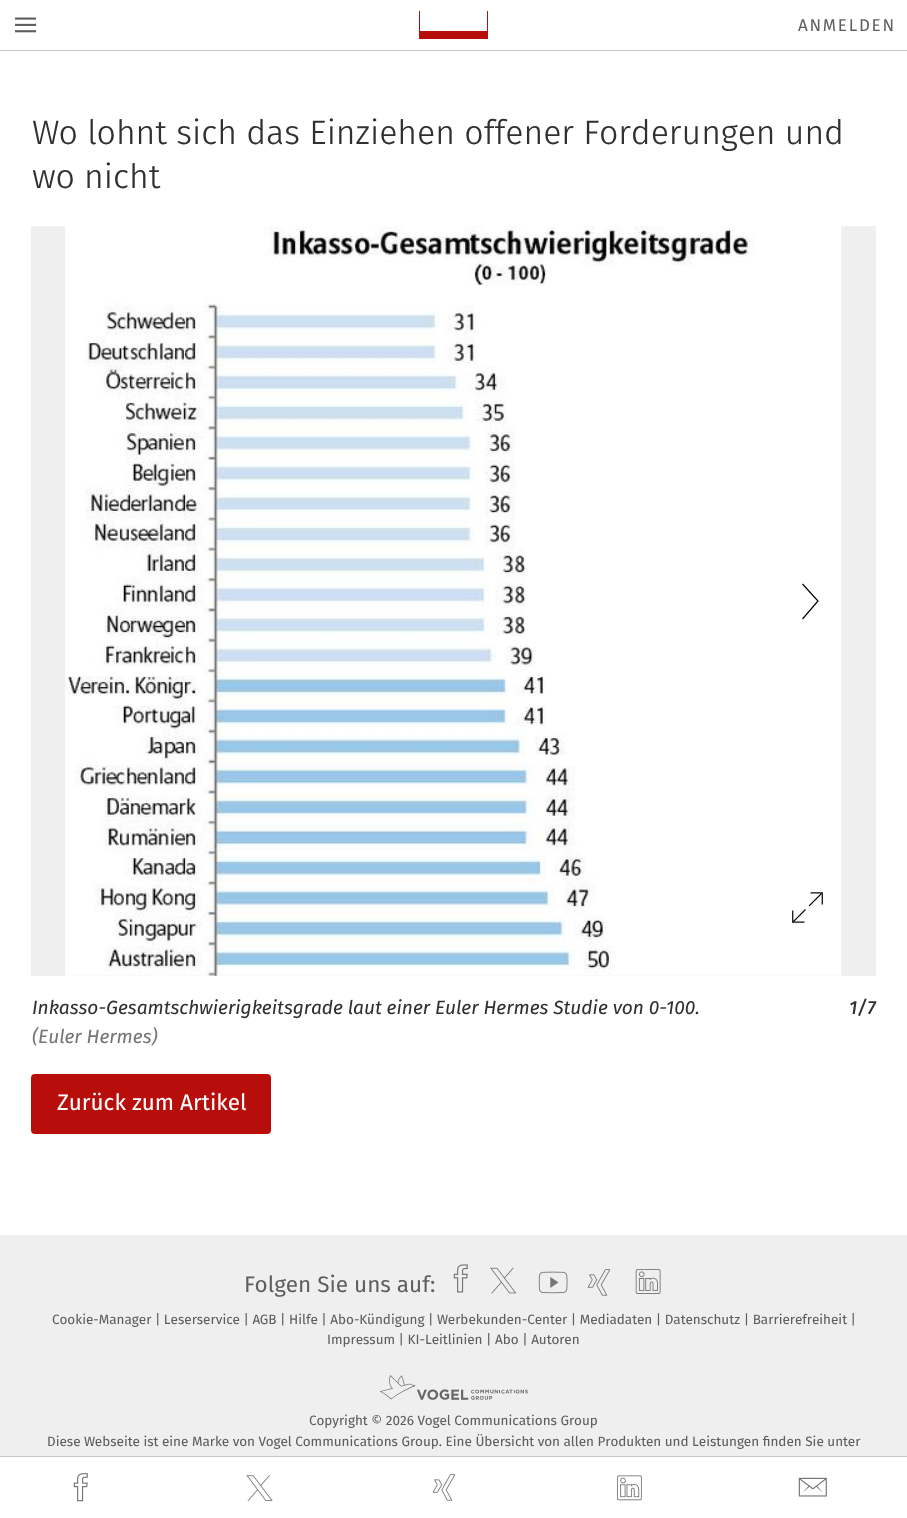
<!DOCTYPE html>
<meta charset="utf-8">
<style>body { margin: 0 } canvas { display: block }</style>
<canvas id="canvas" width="907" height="1518"></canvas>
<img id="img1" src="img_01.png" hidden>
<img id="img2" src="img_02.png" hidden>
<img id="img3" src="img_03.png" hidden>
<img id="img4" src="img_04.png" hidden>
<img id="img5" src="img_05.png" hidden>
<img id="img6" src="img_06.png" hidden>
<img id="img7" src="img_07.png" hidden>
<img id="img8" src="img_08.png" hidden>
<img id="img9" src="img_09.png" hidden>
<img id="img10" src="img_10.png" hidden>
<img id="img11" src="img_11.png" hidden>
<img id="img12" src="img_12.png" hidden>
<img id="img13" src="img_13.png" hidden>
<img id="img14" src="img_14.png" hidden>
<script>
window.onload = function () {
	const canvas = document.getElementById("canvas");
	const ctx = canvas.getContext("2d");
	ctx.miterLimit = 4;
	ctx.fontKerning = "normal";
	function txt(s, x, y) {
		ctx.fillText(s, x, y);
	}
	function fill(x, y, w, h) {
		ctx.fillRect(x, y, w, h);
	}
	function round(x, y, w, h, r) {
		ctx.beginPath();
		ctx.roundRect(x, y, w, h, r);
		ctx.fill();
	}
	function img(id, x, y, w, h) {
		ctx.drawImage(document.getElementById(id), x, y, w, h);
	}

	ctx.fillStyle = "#FFFFFF";
	fill(0, 0, 907, 1518);
	ctx.fillStyle = "#C6C6C6";
	fill(0, 50, 907, 1);
	img("img1", 15, 17, 22, 16);
	ctx.fillStyle = "#B60E0C";
	fill(419, 11, 69, 28);
	ctx.fillStyle = "#FFFFFF";
	fill(420, 11, 67, 20);
	ctx.fillStyle = "#EFEFEF";
	fill(31, 226, 845, 750);
	img("img2", 65, 226, 777, 750);
	ctx.beginPath();
	ctx.moveTo(802.5, 619);
	ctx.lineTo(818, 601);
	ctx.lineTo(802.5, 584);
	ctx.strokeStyle = "#000000";
	ctx.lineWidth = 1.2;
	ctx.stroke();
	img("img3", 792, 892, 31, 31);
	ctx.fillStyle = "#B70E0C";
	round(31, 1074, 240, 60, 4);
	ctx.fillStyle = "#C6C6C6";
	fill(0, 1456, 907, 1);
	img("img4", 73, 1473, 15, 29);
	img("img5", 246, 1475, 27, 26);
	img("img6", 432, 1474, 24, 27);
	img("img7", 616, 1475, 26, 26);
	img("img8", 798, 1477, 29, 20);
	ctx.fillStyle = "#EFEFEF";
	fill(0, 1235, 907, 221);
	img("img9", 453, 1264, 15, 29);
	img("img10", 490, 1267, 27, 27);
	img("img11", 538, 1271, 30, 23);
	img("img12", 587, 1269, 24, 27);
	img("img13", 635, 1269, 26, 25);
	img("img14", 379, 1375, 149, 25);
	ctx.letterSpacing = "1.75px";
	ctx.font = "17px 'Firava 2'";
	ctx.fillStyle = "#5E5E5E";
	txt("ANMELDEN", 798, 31);
	ctx.letterSpacing = "0px";
	ctx.font = "300 33.75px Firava";
	ctx.fillStyle = "#303030";
	txt("Wo lohnt sich das Einziehen offener Forderungen und", 32, 144);
	txt("wo nicht", 32, 188);
	ctx.font = "italic 19.1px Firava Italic";
	txt("Inkasso-Gesamtschwierigkeitsgrade laut einer Euler Hermes Studie von 0-100.", 32, 1014);
	ctx.fillStyle = "#767676";
	txt("(Euler Hermes)", 32, 1043);
	ctx.font = "italic 500 19.1px Firava Italic";
	ctx.fillStyle = "#303030";
	txt("1/7", 849, 1014);
	ctx.font = "22.5px Firava";
	ctx.fillStyle = "#FFFFFF";
	txt("Zurück zum Artikel", 57, 1110);
	ctx.font = "22.5px 'Firava 2'";
	ctx.fillStyle = "#5E5E5E";
	txt("Folgen Sie uns auf:", 244, 1292);
	ctx.font = "13.5px Firava";
	txt("Cookie-Manager | Leserservice | AGB | Hilfe | Abo-Kündigung | Werbekunden-Center | Mediadaten | Datenschutz | Barrierefreiheit |", 52, 1324);
	txt("Impressum | KI-Leitlinien | Abo | Autoren", 327, 1344);
	txt("Copyright © 2026 Vogel Communications Group", 309, 1425);
	txt("Diese Webseite ist eine Marke von Vogel Communications Group. Eine Übersicht von allen Produkten und Leistungen finden Sie unter", 47, 1446);
};
</script>
